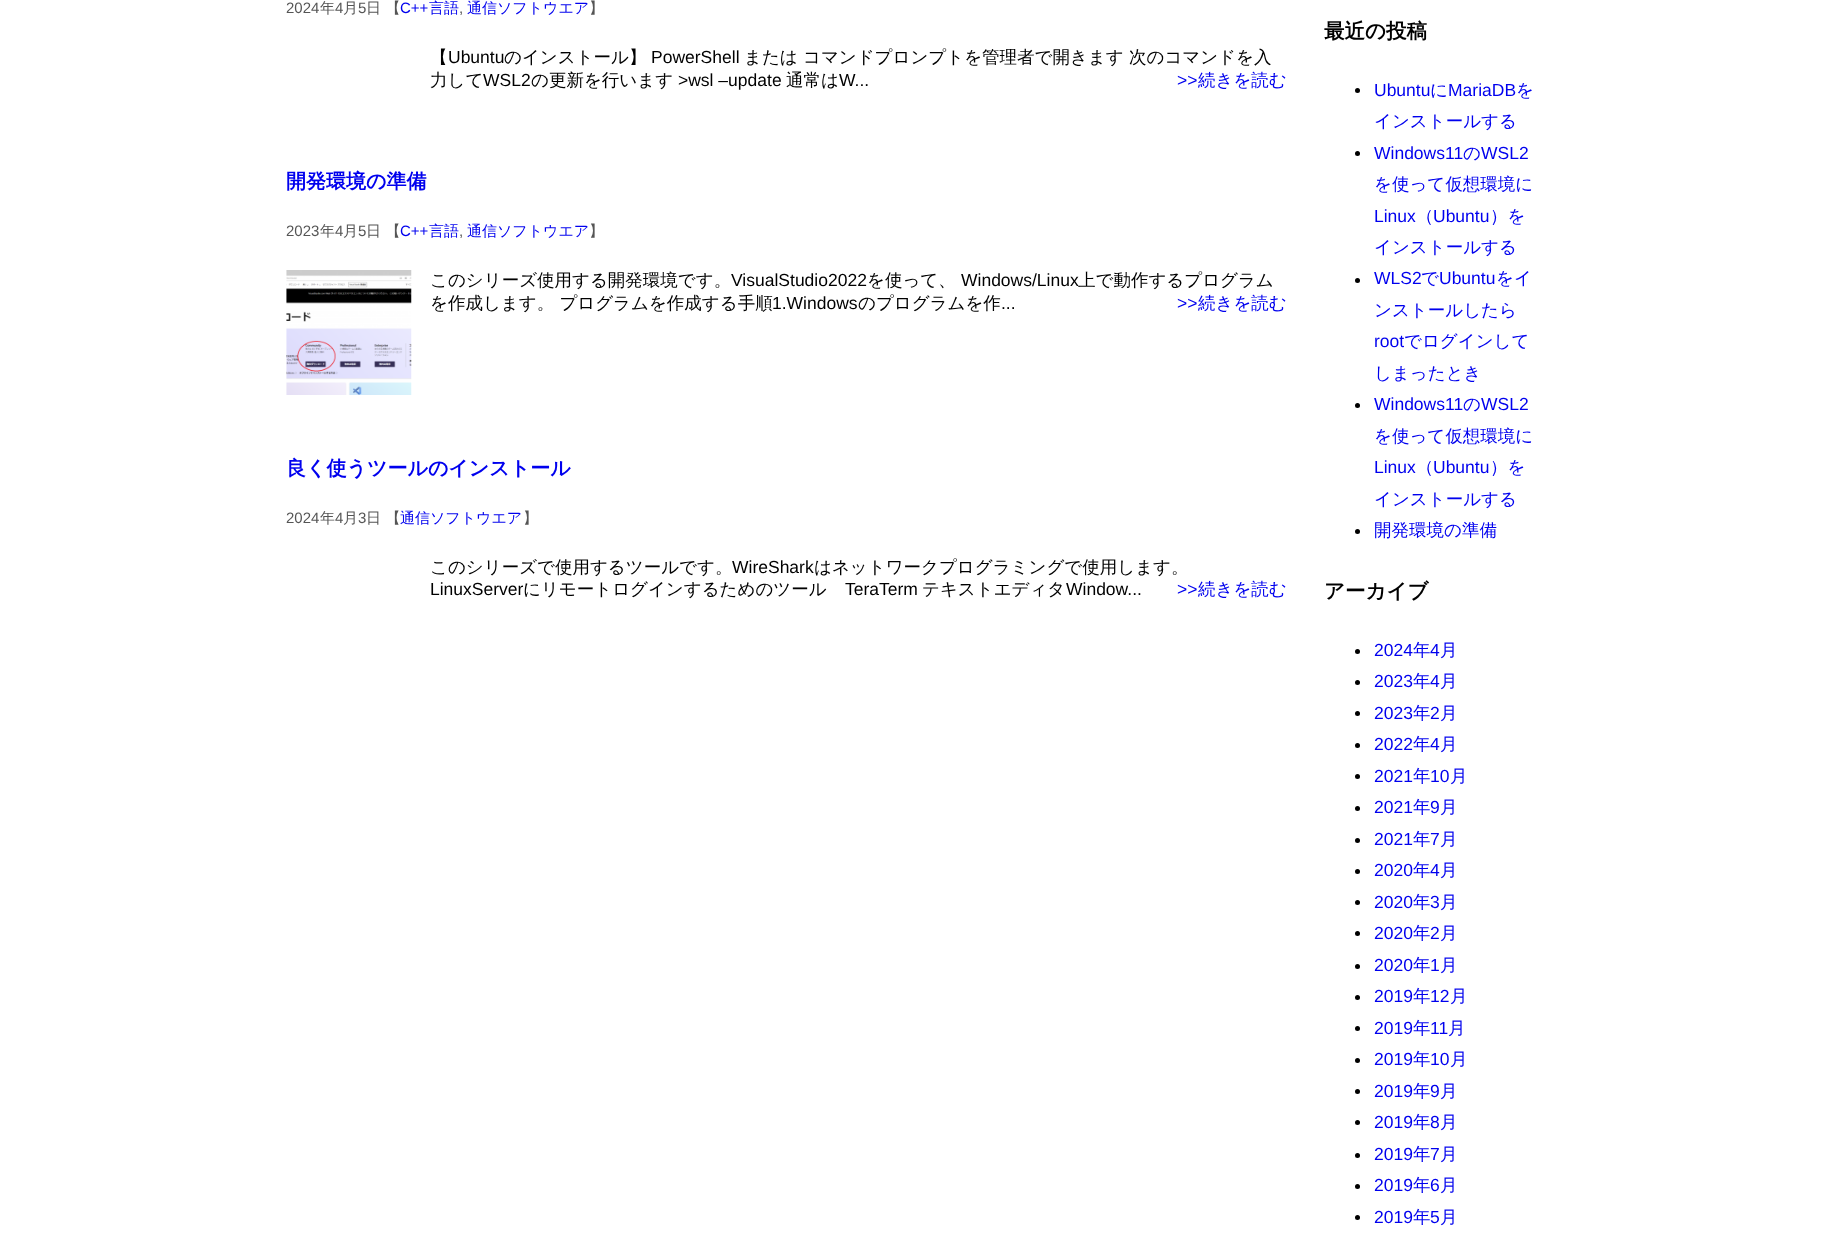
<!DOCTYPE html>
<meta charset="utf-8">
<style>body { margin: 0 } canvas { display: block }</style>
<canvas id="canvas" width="1822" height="1244"></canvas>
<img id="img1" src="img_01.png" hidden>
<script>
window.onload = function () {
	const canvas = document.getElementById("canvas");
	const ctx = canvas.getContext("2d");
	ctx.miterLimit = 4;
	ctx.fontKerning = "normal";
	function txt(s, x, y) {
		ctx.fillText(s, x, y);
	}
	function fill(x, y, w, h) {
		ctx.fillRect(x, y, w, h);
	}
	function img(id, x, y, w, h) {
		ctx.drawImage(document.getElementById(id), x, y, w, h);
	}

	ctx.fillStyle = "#FFFFFF";
	fill(0, 0, 1822, 1244);
	img("img1", 286, 270, 126, 125);
	ctx.fillStyle = "#000000";
	ctx.beginPath();
	ctx.arc(1357.5, 90.5, 2.5, 0, Math.PI * 2);
	ctx.fill();
	ctx.beginPath();
	ctx.arc(1357.5, 153.5, 2.5, 0, Math.PI * 2);
	ctx.fill();
	ctx.beginPath();
	ctx.arc(1357.5, 280.5, 2.5, 0, Math.PI * 2);
	ctx.fill();
	ctx.beginPath();
	ctx.arc(1357.5, 405.5, 2.5, 0, Math.PI * 2);
	ctx.fill();
	ctx.beginPath();
	ctx.arc(1357.5, 531.5, 2.5, 0, Math.PI * 2);
	ctx.fill();
	ctx.beginPath();
	ctx.arc(1357.5, 651.5, 2.5, 0, Math.PI * 2);
	ctx.fill();
	ctx.beginPath();
	ctx.arc(1357.5, 682.5, 2.5, 0, Math.PI * 2);
	ctx.fill();
	ctx.beginPath();
	ctx.arc(1357.5, 713.5, 2.5, 0, Math.PI * 2);
	ctx.fill();
	ctx.beginPath();
	ctx.arc(1357.5, 745.5, 2.5, 0, Math.PI * 2);
	ctx.fill();
	ctx.beginPath();
	ctx.arc(1357.5, 776.5, 2.5, 0, Math.PI * 2);
	ctx.fill();
	ctx.beginPath();
	ctx.arc(1357.5, 808.5, 2.5, 0, Math.PI * 2);
	ctx.fill();
	ctx.beginPath();
	ctx.arc(1357.5, 840.5, 2.5, 0, Math.PI * 2);
	ctx.fill();
	ctx.beginPath();
	ctx.arc(1357.5, 871.5, 2.5, 0, Math.PI * 2);
	ctx.fill();
	ctx.beginPath();
	ctx.arc(1357.5, 902.5, 2.5, 0, Math.PI * 2);
	ctx.fill();
	ctx.beginPath();
	ctx.arc(1357.5, 933.5, 2.5, 0, Math.PI * 2);
	ctx.fill();
	ctx.beginPath();
	ctx.arc(1357.5, 966.5, 2.5, 0, Math.PI * 2);
	ctx.fill();
	ctx.beginPath();
	ctx.arc(1357.5, 997.5, 2.5, 0, Math.PI * 2);
	ctx.fill();
	ctx.beginPath();
	ctx.arc(1357.5, 1028.5, 2.5, 0, Math.PI * 2);
	ctx.fill();
	ctx.beginPath();
	ctx.arc(1357.5, 1060.5, 2.5, 0, Math.PI * 2);
	ctx.fill();
	ctx.beginPath();
	ctx.arc(1357.5, 1091.5, 2.5, 0, Math.PI * 2);
	ctx.fill();
	ctx.beginPath();
	ctx.arc(1357.5, 1122.5, 2.5, 0, Math.PI * 2);
	ctx.fill();
	ctx.beginPath();
	ctx.arc(1357.5, 1155.5, 2.5, 0, Math.PI * 2);
	ctx.fill();
	ctx.beginPath();
	ctx.arc(1357.5, 1186.5, 2.5, 0, Math.PI * 2);
	ctx.fill();
	ctx.beginPath();
	ctx.arc(1357.5, 1217.5, 2.5, 0, Math.PI * 2);
	ctx.fill();
	ctx.font = "15px Liberation Sans";
	ctx.fillStyle = "#555555";
	txt("2024", 286, 13);
	ctx.font = "500 15px WenQuanYi Zen Hei";
	txt("年", 320, 13);
	ctx.font = "15px Liberation Sans";
	txt("4", 335, 13);
	ctx.font = "500 15px WenQuanYi Zen Hei";
	txt("月", 343, 13);
	ctx.font = "15px Liberation Sans";
	txt("5", 358, 13);
	ctx.font = "500 15px WenQuanYi Zen Hei";
	txt("日 【", 366, 13);
	ctx.font = "15px Liberation Sans";
	ctx.fillStyle = "#0000EE";
	txt("C++", 400, 13);
	ctx.font = "500 15px WenQuanYi Zen Hei";
	txt("言語", 429, 13);
	ctx.font = "15px Liberation Sans";
	ctx.fillStyle = "#555555";
	txt(",", 459, 13);
	ctx.font = "500 15px WenQuanYi Zen Hei";
	ctx.fillStyle = "#0000EE";
	txt("通信ソフトウエア", 467, 13);
	ctx.fillStyle = "#555555";
	txt("】", 589, 13);
	ctx.font = "500 17.5px WenQuanYi Zen Hei";
	ctx.fillStyle = "#000000";
	txt("【", 430, 63);
	ctx.font = "17.5px Liberation Sans";
	txt("Ubuntu", 448, 63);
	ctx.font = "500 17.5px WenQuanYi Zen Hei";
	txt("のインストール】", 504, 63);
	ctx.font = "17.5px Liberation Sans";
	txt("PowerShell", 651, 63);
	ctx.font = "500 17.5px WenQuanYi Zen Hei";
	txt("または コマンドプロンプトを管理者で開きます 次のコマンドを入", 744, 63);
	txt("力して", 430, 86);
	ctx.font = "17.5px Liberation Sans";
	txt("WSL2", 483, 86);
	ctx.font = "500 17.5px WenQuanYi Zen Hei";
	txt("の更新を行います", 531, 86);
	ctx.font = "17.5px Liberation Sans";
	txt(">wsl –update", 678, 86);
	ctx.font = "500 17.5px WenQuanYi Zen Hei";
	txt("通常は", 786, 86);
	ctx.font = "17.5px Liberation Sans";
	txt("W...", 839, 86);
	ctx.fillStyle = "#0000EE";
	txt(">>", 1177, 86);
	ctx.font = "500 17.5px WenQuanYi Zen Hei";
	txt("続きを読む", 1198, 86);
	ctx.font = "bold 20px WenQuanYi Zen Hei";
	txt("開発環境の準備", 286, 188);
	ctx.font = "15px Liberation Sans";
	ctx.fillStyle = "#555555";
	txt("2023", 286, 236);
	ctx.font = "500 15px WenQuanYi Zen Hei";
	txt("年", 320, 236);
	ctx.font = "15px Liberation Sans";
	txt("4", 335, 236);
	ctx.font = "500 15px WenQuanYi Zen Hei";
	txt("月", 343, 236);
	ctx.font = "15px Liberation Sans";
	txt("5", 358, 236);
	ctx.font = "500 15px WenQuanYi Zen Hei";
	txt("日 【", 366, 236);
	ctx.font = "15px Liberation Sans";
	ctx.fillStyle = "#0000EE";
	txt("C++", 400, 236);
	ctx.font = "500 15px WenQuanYi Zen Hei";
	txt("言語", 429, 236);
	ctx.font = "15px Liberation Sans";
	ctx.fillStyle = "#555555";
	txt(",", 459, 236);
	ctx.font = "500 15px WenQuanYi Zen Hei";
	ctx.fillStyle = "#0000EE";
	txt("通信ソフトウエア", 467, 236);
	ctx.fillStyle = "#555555";
	txt("】", 589, 236);
	ctx.font = "500 17.5px WenQuanYi Zen Hei";
	ctx.fillStyle = "#000000";
	txt("このシリーズ使用する開発環境です。", 430, 286);
	ctx.font = "17.5px Liberation Sans";
	txt("VisualStudio2022", 731, 286);
	ctx.font = "500 17.5px WenQuanYi Zen Hei";
	txt("を使って、", 867, 286);
	ctx.font = "17.5px Liberation Sans";
	txt("Windows/Linux", 961, 286);
	ctx.font = "500 17.5px WenQuanYi Zen Hei";
	txt("上で動作するプログラム", 1078, 286);
	txt("を作成します。 プログラムを作成する手順", 430, 309);
	ctx.font = "17.5px Liberation Sans";
	txt("1.Windows", 772, 309);
	ctx.font = "500 17.5px WenQuanYi Zen Hei";
	txt("のプログラムを作", 858, 309);
	ctx.font = "17.5px Liberation Sans";
	txt("...", 1001, 309);
	ctx.fillStyle = "#0000EE";
	txt(">>", 1177, 309);
	ctx.font = "500 17.5px WenQuanYi Zen Hei";
	txt("続きを読む", 1198, 309);
	ctx.font = "bold 20px WenQuanYi Zen Hei";
	txt("良く使うツールのインストール", 286, 475);
	ctx.font = "15px Liberation Sans";
	ctx.fillStyle = "#555555";
	txt("2024", 286, 523);
	ctx.font = "500 15px WenQuanYi Zen Hei";
	txt("年", 320, 523);
	ctx.font = "15px Liberation Sans";
	txt("4", 335, 523);
	ctx.font = "500 15px WenQuanYi Zen Hei";
	txt("月", 343, 523);
	ctx.font = "15px Liberation Sans";
	txt("3", 358, 523);
	ctx.font = "500 15px WenQuanYi Zen Hei";
	txt("日 【", 366, 523);
	ctx.fillStyle = "#0000EE";
	txt("通信ソフトウエア", 400, 523);
	ctx.fillStyle = "#555555";
	txt("】", 523, 523);
	ctx.font = "500 17.5px WenQuanYi Zen Hei";
	ctx.fillStyle = "#000000";
	txt("このシリーズで使用するツールです。", 430, 573);
	ctx.font = "17.5px Liberation Sans";
	txt("WireShark", 732, 573);
	ctx.font = "500 17.5px WenQuanYi Zen Hei";
	txt("はネットワークプログラミングで使用します。", 814, 573);
	ctx.font = "17.5px Liberation Sans";
	txt("LinuxServer", 430, 595);
	ctx.font = "500 17.5px WenQuanYi Zen Hei";
	txt("にリモートログインするためのツール", 523, 595);
	ctx.font = "17.5px Liberation Sans";
	txt("TeraTerm", 845, 595);
	ctx.font = "500 17.5px WenQuanYi Zen Hei";
	txt("テキストエディタ", 922, 595);
	ctx.font = "17.5px Liberation Sans";
	txt("Window...", 1066, 595);
	ctx.fillStyle = "#0000EE";
	txt(">>", 1177, 595);
	ctx.font = "500 17.5px WenQuanYi Zen Hei";
	txt("続きを読む", 1198, 595);
	ctx.font = "bold 20.5px WenQuanYi Zen Hei";
	ctx.fillStyle = "#000000";
	txt("最近の投稿", 1324, 38);
	ctx.font = "17.5px Liberation Sans";
	ctx.fillStyle = "#0000EE";
	txt("Ubuntu", 1374, 96);
	ctx.font = "500 17.5px WenQuanYi Zen Hei";
	txt("に", 1430, 96);
	ctx.font = "17.5px Liberation Sans";
	txt("MariaDB", 1448, 96);
	ctx.font = "500 17.5px WenQuanYi Zen Hei";
	txt("を", 1516, 96);
	txt("インストールする", 1374, 127);
	ctx.font = "17.5px Liberation Sans";
	txt("Windows11", 1374, 159);
	ctx.font = "500 17.5px WenQuanYi Zen Hei";
	txt("の", 1463, 159);
	ctx.font = "17.5px Liberation Sans";
	txt("WSL2", 1481, 159);
	ctx.font = "500 17.5px WenQuanYi Zen Hei";
	txt("を使って仮想環境に", 1374, 190);
	ctx.font = "17.5px Liberation Sans";
	txt("Linux", 1374, 222);
	ctx.font = "500 17.5px WenQuanYi Zen Hei";
	txt("（", 1416, 222);
	ctx.font = "17.5px Liberation Sans";
	txt("Ubuntu", 1433, 222);
	ctx.font = "500 17.5px WenQuanYi Zen Hei";
	txt("）を", 1490, 222);
	txt("インストールする", 1374, 253);
	ctx.font = "17.5px Liberation Sans";
	txt("WLS2", 1374, 284);
	ctx.font = "500 17.5px WenQuanYi Zen Hei";
	txt("で", 1421, 284);
	ctx.font = "17.5px Liberation Sans";
	txt("Ubuntu", 1439, 284);
	ctx.font = "500 17.5px WenQuanYi Zen Hei";
	txt("をイ", 1496, 284);
	txt("ンストールしたら", 1374, 316);
	ctx.font = "17.5px Liberation Sans";
	txt("root", 1374, 347);
	ctx.font = "500 17.5px WenQuanYi Zen Hei";
	txt("でログインして", 1404, 347);
	txt("しまったとき", 1374, 379);
	ctx.font = "17.5px Liberation Sans";
	txt("Windows11", 1374, 410);
	ctx.font = "500 17.5px WenQuanYi Zen Hei";
	txt("の", 1463, 410);
	ctx.font = "17.5px Liberation Sans";
	txt("WSL2", 1481, 410);
	ctx.font = "500 17.5px WenQuanYi Zen Hei";
	txt("を使って仮想環境に", 1374, 442);
	ctx.font = "17.5px Liberation Sans";
	txt("Linux", 1374, 473);
	ctx.font = "500 17.5px WenQuanYi Zen Hei";
	txt("（", 1416, 473);
	ctx.font = "17.5px Liberation Sans";
	txt("Ubuntu", 1433, 473);
	ctx.font = "500 17.5px WenQuanYi Zen Hei";
	txt("）を", 1490, 473);
	txt("インストールする", 1374, 505);
	txt("開発環境の準備", 1374, 536);
	ctx.font = "bold 20.5px WenQuanYi Zen Hei";
	ctx.fillStyle = "#000000";
	txt("アーカイブ", 1324, 598);
	ctx.font = "17.5px Liberation Sans";
	ctx.fillStyle = "#0000EE";
	txt("2024", 1374, 656);
	ctx.font = "500 17.5px WenQuanYi Zen Hei";
	txt("年", 1413, 656);
	ctx.font = "17.5px Liberation Sans";
	txt("4", 1430, 656);
	ctx.font = "500 17.5px WenQuanYi Zen Hei";
	txt("月", 1440, 656);
	ctx.font = "17.5px Liberation Sans";
	txt("2023", 1374, 687);
	ctx.font = "500 17.5px WenQuanYi Zen Hei";
	txt("年", 1413, 687);
	ctx.font = "17.5px Liberation Sans";
	txt("4", 1430, 687);
	ctx.font = "500 17.5px WenQuanYi Zen Hei";
	txt("月", 1440, 687);
	ctx.font = "17.5px Liberation Sans";
	txt("2023", 1374, 719);
	ctx.font = "500 17.5px WenQuanYi Zen Hei";
	txt("年", 1413, 719);
	ctx.font = "17.5px Liberation Sans";
	txt("2", 1430, 719);
	ctx.font = "500 17.5px WenQuanYi Zen Hei";
	txt("月", 1440, 719);
	ctx.font = "17.5px Liberation Sans";
	txt("2022", 1374, 750);
	ctx.font = "500 17.5px WenQuanYi Zen Hei";
	txt("年", 1413, 750);
	ctx.font = "17.5px Liberation Sans";
	txt("4", 1430, 750);
	ctx.font = "500 17.5px WenQuanYi Zen Hei";
	txt("月", 1440, 750);
	ctx.font = "17.5px Liberation Sans";
	txt("2021", 1374, 782);
	ctx.font = "500 17.5px WenQuanYi Zen Hei";
	txt("年", 1413, 782);
	ctx.font = "17.5px Liberation Sans";
	txt("10", 1430, 782);
	ctx.font = "500 17.5px WenQuanYi Zen Hei";
	txt("月", 1450, 782);
	ctx.font = "17.5px Liberation Sans";
	txt("2021", 1374, 813);
	ctx.font = "500 17.5px WenQuanYi Zen Hei";
	txt("年", 1413, 813);
	ctx.font = "17.5px Liberation Sans";
	txt("9", 1430, 813);
	ctx.font = "500 17.5px WenQuanYi Zen Hei";
	txt("月", 1440, 813);
	ctx.font = "17.5px Liberation Sans";
	txt("2021", 1374, 845);
	ctx.font = "500 17.5px WenQuanYi Zen Hei";
	txt("年", 1413, 845);
	ctx.font = "17.5px Liberation Sans";
	txt("7", 1430, 845);
	ctx.font = "500 17.5px WenQuanYi Zen Hei";
	txt("月", 1440, 845);
	ctx.font = "17.5px Liberation Sans";
	txt("2020", 1374, 876);
	ctx.font = "500 17.5px WenQuanYi Zen Hei";
	txt("年", 1413, 876);
	ctx.font = "17.5px Liberation Sans";
	txt("4", 1430, 876);
	ctx.font = "500 17.5px WenQuanYi Zen Hei";
	txt("月", 1440, 876);
	ctx.font = "17.5px Liberation Sans";
	txt("2020", 1374, 908);
	ctx.font = "500 17.5px WenQuanYi Zen Hei";
	txt("年", 1413, 908);
	ctx.font = "17.5px Liberation Sans";
	txt("3", 1430, 908);
	ctx.font = "500 17.5px WenQuanYi Zen Hei";
	txt("月", 1440, 908);
	ctx.font = "17.5px Liberation Sans";
	txt("2020", 1374, 939);
	ctx.font = "500 17.5px WenQuanYi Zen Hei";
	txt("年", 1413, 939);
	ctx.font = "17.5px Liberation Sans";
	txt("2", 1430, 939);
	ctx.font = "500 17.5px WenQuanYi Zen Hei";
	txt("月", 1440, 939);
	ctx.font = "17.5px Liberation Sans";
	txt("2020", 1374, 971);
	ctx.font = "500 17.5px WenQuanYi Zen Hei";
	txt("年", 1413, 971);
	ctx.font = "17.5px Liberation Sans";
	txt("1", 1430, 971);
	ctx.font = "500 17.5px WenQuanYi Zen Hei";
	txt("月", 1440, 971);
	ctx.font = "17.5px Liberation Sans";
	txt("2019", 1374, 1002);
	ctx.font = "500 17.5px WenQuanYi Zen Hei";
	txt("年", 1413, 1002);
	ctx.font = "17.5px Liberation Sans";
	txt("12", 1430, 1002);
	ctx.font = "500 17.5px WenQuanYi Zen Hei";
	txt("月", 1450, 1002);
	ctx.font = "17.5px Liberation Sans";
	txt("2019", 1374, 1034);
	ctx.font = "500 17.5px WenQuanYi Zen Hei";
	txt("年", 1413, 1034);
	ctx.font = "17.5px Liberation Sans";
	txt("11", 1430, 1034);
	ctx.font = "500 17.5px WenQuanYi Zen Hei";
	txt("月", 1448, 1034);
	ctx.font = "17.5px Liberation Sans";
	txt("2019", 1374, 1065);
	ctx.font = "500 17.5px WenQuanYi Zen Hei";
	txt("年", 1413, 1065);
	ctx.font = "17.5px Liberation Sans";
	txt("10", 1430, 1065);
	ctx.font = "500 17.5px WenQuanYi Zen Hei";
	txt("月", 1450, 1065);
	ctx.font = "17.5px Liberation Sans";
	txt("2019", 1374, 1097);
	ctx.font = "500 17.5px WenQuanYi Zen Hei";
	txt("年", 1413, 1097);
	ctx.font = "17.5px Liberation Sans";
	txt("9", 1430, 1097);
	ctx.font = "500 17.5px WenQuanYi Zen Hei";
	txt("月", 1440, 1097);
	ctx.font = "17.5px Liberation Sans";
	txt("2019", 1374, 1128);
	ctx.font = "500 17.5px WenQuanYi Zen Hei";
	txt("年", 1413, 1128);
	ctx.font = "17.5px Liberation Sans";
	txt("8", 1430, 1128);
	ctx.font = "500 17.5px WenQuanYi Zen Hei";
	txt("月", 1440, 1128);
	ctx.font = "17.5px Liberation Sans";
	txt("2019", 1374, 1160);
	ctx.font = "500 17.5px WenQuanYi Zen Hei";
	txt("年", 1413, 1160);
	ctx.font = "17.5px Liberation Sans";
	txt("7", 1430, 1160);
	ctx.font = "500 17.5px WenQuanYi Zen Hei";
	txt("月", 1440, 1160);
	ctx.font = "17.5px Liberation Sans";
	txt("2019", 1374, 1191);
	ctx.font = "500 17.5px WenQuanYi Zen Hei";
	txt("年", 1413, 1191);
	ctx.font = "17.5px Liberation Sans";
	txt("6", 1430, 1191);
	ctx.font = "500 17.5px WenQuanYi Zen Hei";
	txt("月", 1440, 1191);
	ctx.font = "17.5px Liberation Sans";
	txt("2019", 1374, 1223);
	ctx.font = "500 17.5px WenQuanYi Zen Hei";
	txt("年", 1413, 1223);
	ctx.font = "17.5px Liberation Sans";
	txt("5", 1430, 1223);
	ctx.font = "500 17.5px WenQuanYi Zen Hei";
	txt("月", 1440, 1223);
};
</script>
